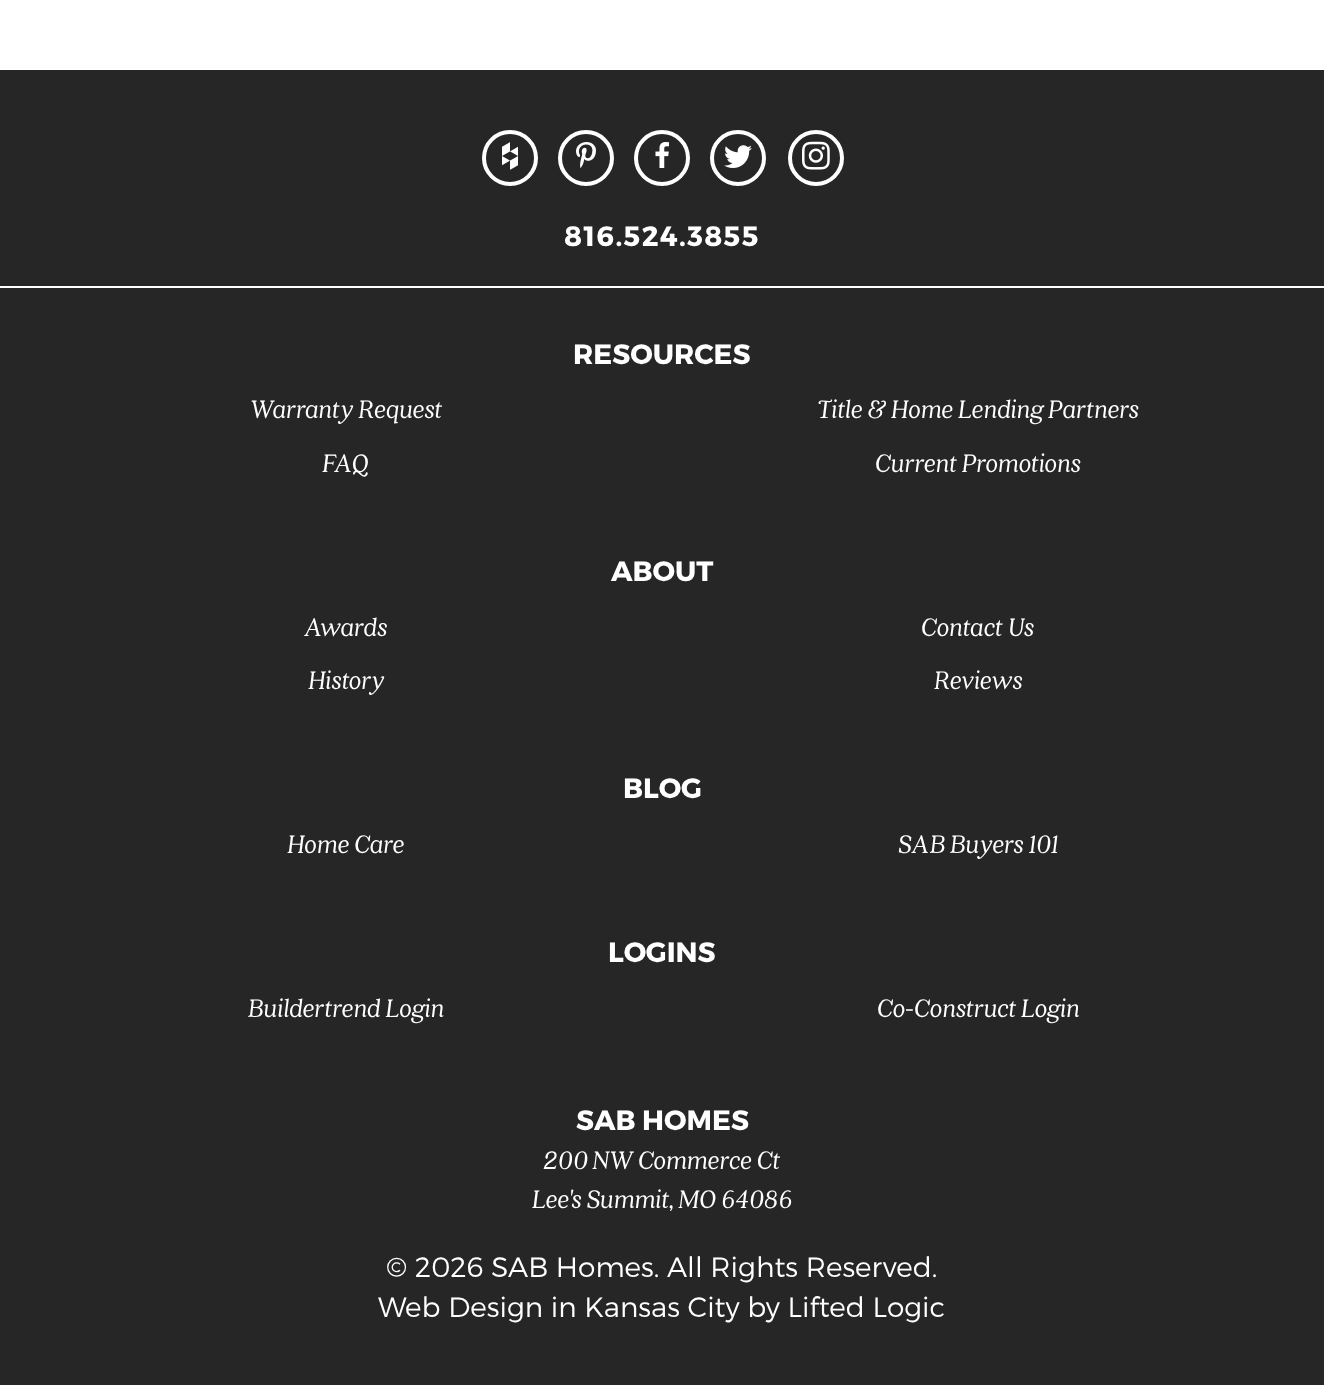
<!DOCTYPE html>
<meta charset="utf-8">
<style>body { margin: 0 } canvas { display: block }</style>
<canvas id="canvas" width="1324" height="1385"></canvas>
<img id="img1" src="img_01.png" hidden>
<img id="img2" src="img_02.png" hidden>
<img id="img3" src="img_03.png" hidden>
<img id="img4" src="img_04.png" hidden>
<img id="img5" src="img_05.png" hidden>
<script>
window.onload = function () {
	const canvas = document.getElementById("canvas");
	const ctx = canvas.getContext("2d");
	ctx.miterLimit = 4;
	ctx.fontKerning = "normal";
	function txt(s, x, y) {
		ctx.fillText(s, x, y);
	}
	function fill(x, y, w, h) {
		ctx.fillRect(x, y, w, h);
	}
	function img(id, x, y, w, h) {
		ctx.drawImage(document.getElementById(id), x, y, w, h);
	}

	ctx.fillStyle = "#FFFFFF";
	fill(0, 0, 1324, 1385);
	ctx.fillStyle = "#262626";
	fill(0, 70, 1324, 1315);
	ctx.fillStyle = "#FFFFFF";
	fill(0, 286, 1324, 2);
	ctx.beginPath();
	ctx.arc(510, 158, 26, 0, Math.PI * 2);
	ctx.strokeStyle = "#FFFFFF";
	ctx.lineWidth = 4;
	ctx.stroke();
	img("img1", 502, 142, 16, 28);
	ctx.beginPath();
	ctx.arc(586, 158, 26, 0, Math.PI * 2);
	ctx.stroke();
	img("img2", 576, 142, 20, 26);
	ctx.beginPath();
	ctx.arc(662, 158, 26, 0, Math.PI * 2);
	ctx.stroke();
	img("img3", 655, 142, 14, 26);
	ctx.beginPath();
	ctx.arc(738, 158, 26, 0, Math.PI * 2);
	ctx.stroke();
	img("img4", 724, 145, 28, 23);
	ctx.beginPath();
	ctx.arc(816, 158, 26, 0, Math.PI * 2);
	ctx.stroke();
	img("img5", 802, 141, 28, 29);
	ctx.letterSpacing = "1.4px";
	ctx.font = "bold 28px Montserrat";
	txt("816.524.3855", 564, 246);
	ctx.letterSpacing = "0px";
	txt("RESOURCES", 573, 364);
	ctx.font = "italic 28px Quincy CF";
	txt("Warranty Request", 250, 418);
	txt("Title & Home Lending Partners", 817, 418);
	txt("FAQ", 322, 472);
	txt("Current Promotions", 875, 472);
	ctx.font = "bold 28px Montserrat";
	txt("ABOUT", 611, 581);
	ctx.font = "italic 28px Quincy CF";
	txt("Awards", 304, 636);
	txt("Contact Us", 921, 636);
	txt("History", 308, 689);
	txt("Reviews", 934, 689);
	ctx.font = "bold 28px Montserrat";
	txt("BLOG", 623, 798);
	ctx.font = "italic 28px Quincy CF";
	txt("Home Care", 287, 853);
	txt("SAB Buyers 101", 898, 853);
	ctx.font = "bold 28px Montserrat";
	txt("LOGINS", 608, 962);
	ctx.font = "italic 28px Quincy CF";
	txt("Buildertrend Login", 248, 1017);
	txt("Co-Construct Login", 877, 1017);
	ctx.font = "bold 28px Montserrat";
	txt("SAB HOMES", 576, 1130);
	ctx.font = "italic 28px Quincy CF";
	txt("200 NW Commerce Ct", 543, 1169);
	txt("Lee's Summit, MO 64086", 532, 1208);
	ctx.font = "300 28px Montserrat";
	txt("© 2026 SAB Homes. All Rights Reserved.", 386, 1277);
	txt("Web Design in Kansas City by Lifted Logic", 378, 1317);
};
</script>
